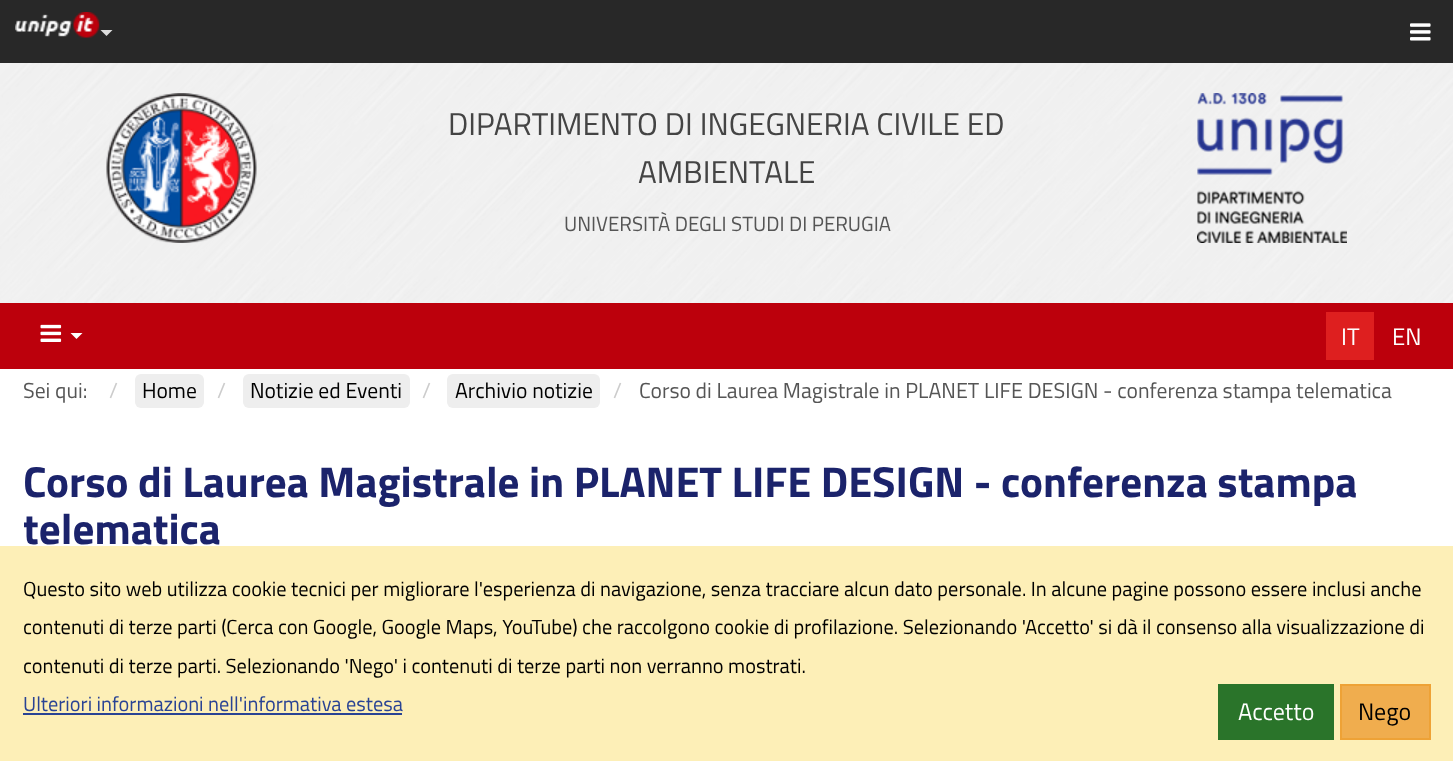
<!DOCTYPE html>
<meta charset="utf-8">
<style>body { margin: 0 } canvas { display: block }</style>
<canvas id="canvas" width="1453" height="761"></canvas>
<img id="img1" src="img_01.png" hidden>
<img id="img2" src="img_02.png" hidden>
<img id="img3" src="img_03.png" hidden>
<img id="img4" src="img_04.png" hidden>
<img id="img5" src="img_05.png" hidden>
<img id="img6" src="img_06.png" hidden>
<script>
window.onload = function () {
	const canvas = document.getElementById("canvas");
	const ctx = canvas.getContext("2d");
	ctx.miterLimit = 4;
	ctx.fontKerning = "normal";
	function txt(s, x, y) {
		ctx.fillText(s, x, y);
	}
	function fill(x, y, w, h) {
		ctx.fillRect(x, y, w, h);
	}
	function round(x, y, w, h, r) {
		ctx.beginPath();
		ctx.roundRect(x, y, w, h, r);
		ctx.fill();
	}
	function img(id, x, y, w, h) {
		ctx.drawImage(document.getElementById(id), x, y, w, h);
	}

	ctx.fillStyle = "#FFFFFF";
	fill(0, 0, 1453, 761);
	ctx.fillStyle = "#282828";
	fill(0, 0, 1453, 63);
	img("img1", 15, 12, 85, 26);
	ctx.fillStyle = "#DDDDDD";
	ctx.beginPath();
	ctx.moveTo(100.5, 30);
	ctx.lineTo(112.5, 30);
	ctx.lineTo(106.5, 36);
	ctx.closePath();
	ctx.fill();
	img("img2", 1410, 23, 21, 18);
	img("img3", 0, 63, 1453, 240);
	img("img4", 106, 93, 151, 150);
	img("img5", 1197, 93, 150, 150);
	ctx.fillStyle = "#BC000C";
	fill(0, 303, 1453, 66);
	img("img6", 40, 324, 22, 18);
	ctx.fillStyle = "#FFFFFF";
	ctx.beginPath();
	ctx.moveTo(70.5, 333);
	ctx.lineTo(82.5, 333);
	ctx.lineTo(76.5, 339);
	ctx.closePath();
	ctx.fill();
	ctx.fillStyle = "#DE1F1F";
	fill(1326, 312, 48, 48);
	ctx.fillStyle = "#EEEEEE";
	round(135, 374, 69, 34, 6);
	round(243, 374, 167, 34, 6);
	round(447, 374, 153, 34, 6);
	ctx.fillStyle = "#FDEFB7";
	fill(0, 546, 1453, 215);
	ctx.fillStyle = "#294394";
	fill(23, 713, 379, 2);
	ctx.fillStyle = "#2A742A";
	fill(1218, 684, 116, 56);
	ctx.fillStyle = "#F0AD4E";
	ctx.beginPath();
	ctx.rect(1341, 685, 89, 54);
	ctx.fill();
	ctx.strokeStyle = "#EEA236";
	ctx.lineWidth = 2;
	ctx.stroke();
	ctx.font = "31.5px Titillium Web";
	ctx.fillStyle = "#444444";
	txt("DIPARTIMENTO DI INGEGNERIA CIVILE ED", 448, 135);
	txt("AMBIENTALE", 638, 183);
	ctx.font = "20.5px Titillium Web";
	ctx.fillStyle = "#555555";
	txt("UNIVERSITÀ DEGLI STUDI DI PERUGIA", 564, 231);
	ctx.font = "24px Titillium Web";
	ctx.fillStyle = "#FFFFFF";
	txt("IT", 1341, 345);
	txt("EN", 1392, 345);
	ctx.font = "21.6px Titillium Web";
	ctx.fillStyle = "#555555";
	txt("Sei qui:", 23, 398);
	ctx.fillStyle = "#CCCCCC";
	txt("/", 109, 398);
	ctx.fillStyle = "#000000";
	txt("Home", 142, 398);
	ctx.fillStyle = "#CCCCCC";
	txt("/", 217, 398);
	ctx.fillStyle = "#000000";
	txt("Notizie ed Eventi", 250, 398);
	ctx.fillStyle = "#CCCCCC";
	txt("/", 422, 398);
	ctx.fillStyle = "#000000";
	txt("Archivio notizie", 455, 398);
	ctx.fillStyle = "#CCCCCC";
	txt("/", 613, 398);
	ctx.fillStyle = "#555555";
	txt("Corso di Laurea Magistrale in PLANET LIFE DESIGN - conferenza stampa telematica", 639, 398);
	ctx.font = "bold 43.2px Titillium Web";
	ctx.fillStyle = "#1B236B";
	txt("Corso di Laurea Magistrale in PLANET LIFE DESIGN - conferenza stampa", 23, 497);
	txt("telematica", 23, 544);
	ctx.font = "20.4px Titillium Web";
	ctx.fillStyle = "#000000";
	txt("Questo sito web utilizza cookie tecnici per migliorare l'esperienza di navigazione, senza tracciare alcun dato personale. In alcune pagine possono essere inclusi anche", 23, 596);
	txt("contenuti di terze parti (Cerca con Google, Google Maps, YouTube) che raccolgono cookie di profilazione. Selezionando 'Accetto' si dà il consenso alla visualizzazione di", 23, 634);
	txt("contenuti di terze parti. Selezionando 'Nego' i contenuti di terze parti non verranno mostrati.", 23, 673);
	ctx.fillStyle = "#294394";
	txt("Ulteriori informazioni nell'informativa estesa", 23, 711);
	ctx.font = "24px Titillium Web";
	ctx.fillStyle = "#FFFFFF";
	txt("Accetto", 1238, 720);
	ctx.fillStyle = "#000000";
	txt("Nego", 1358, 720);
};
</script>
